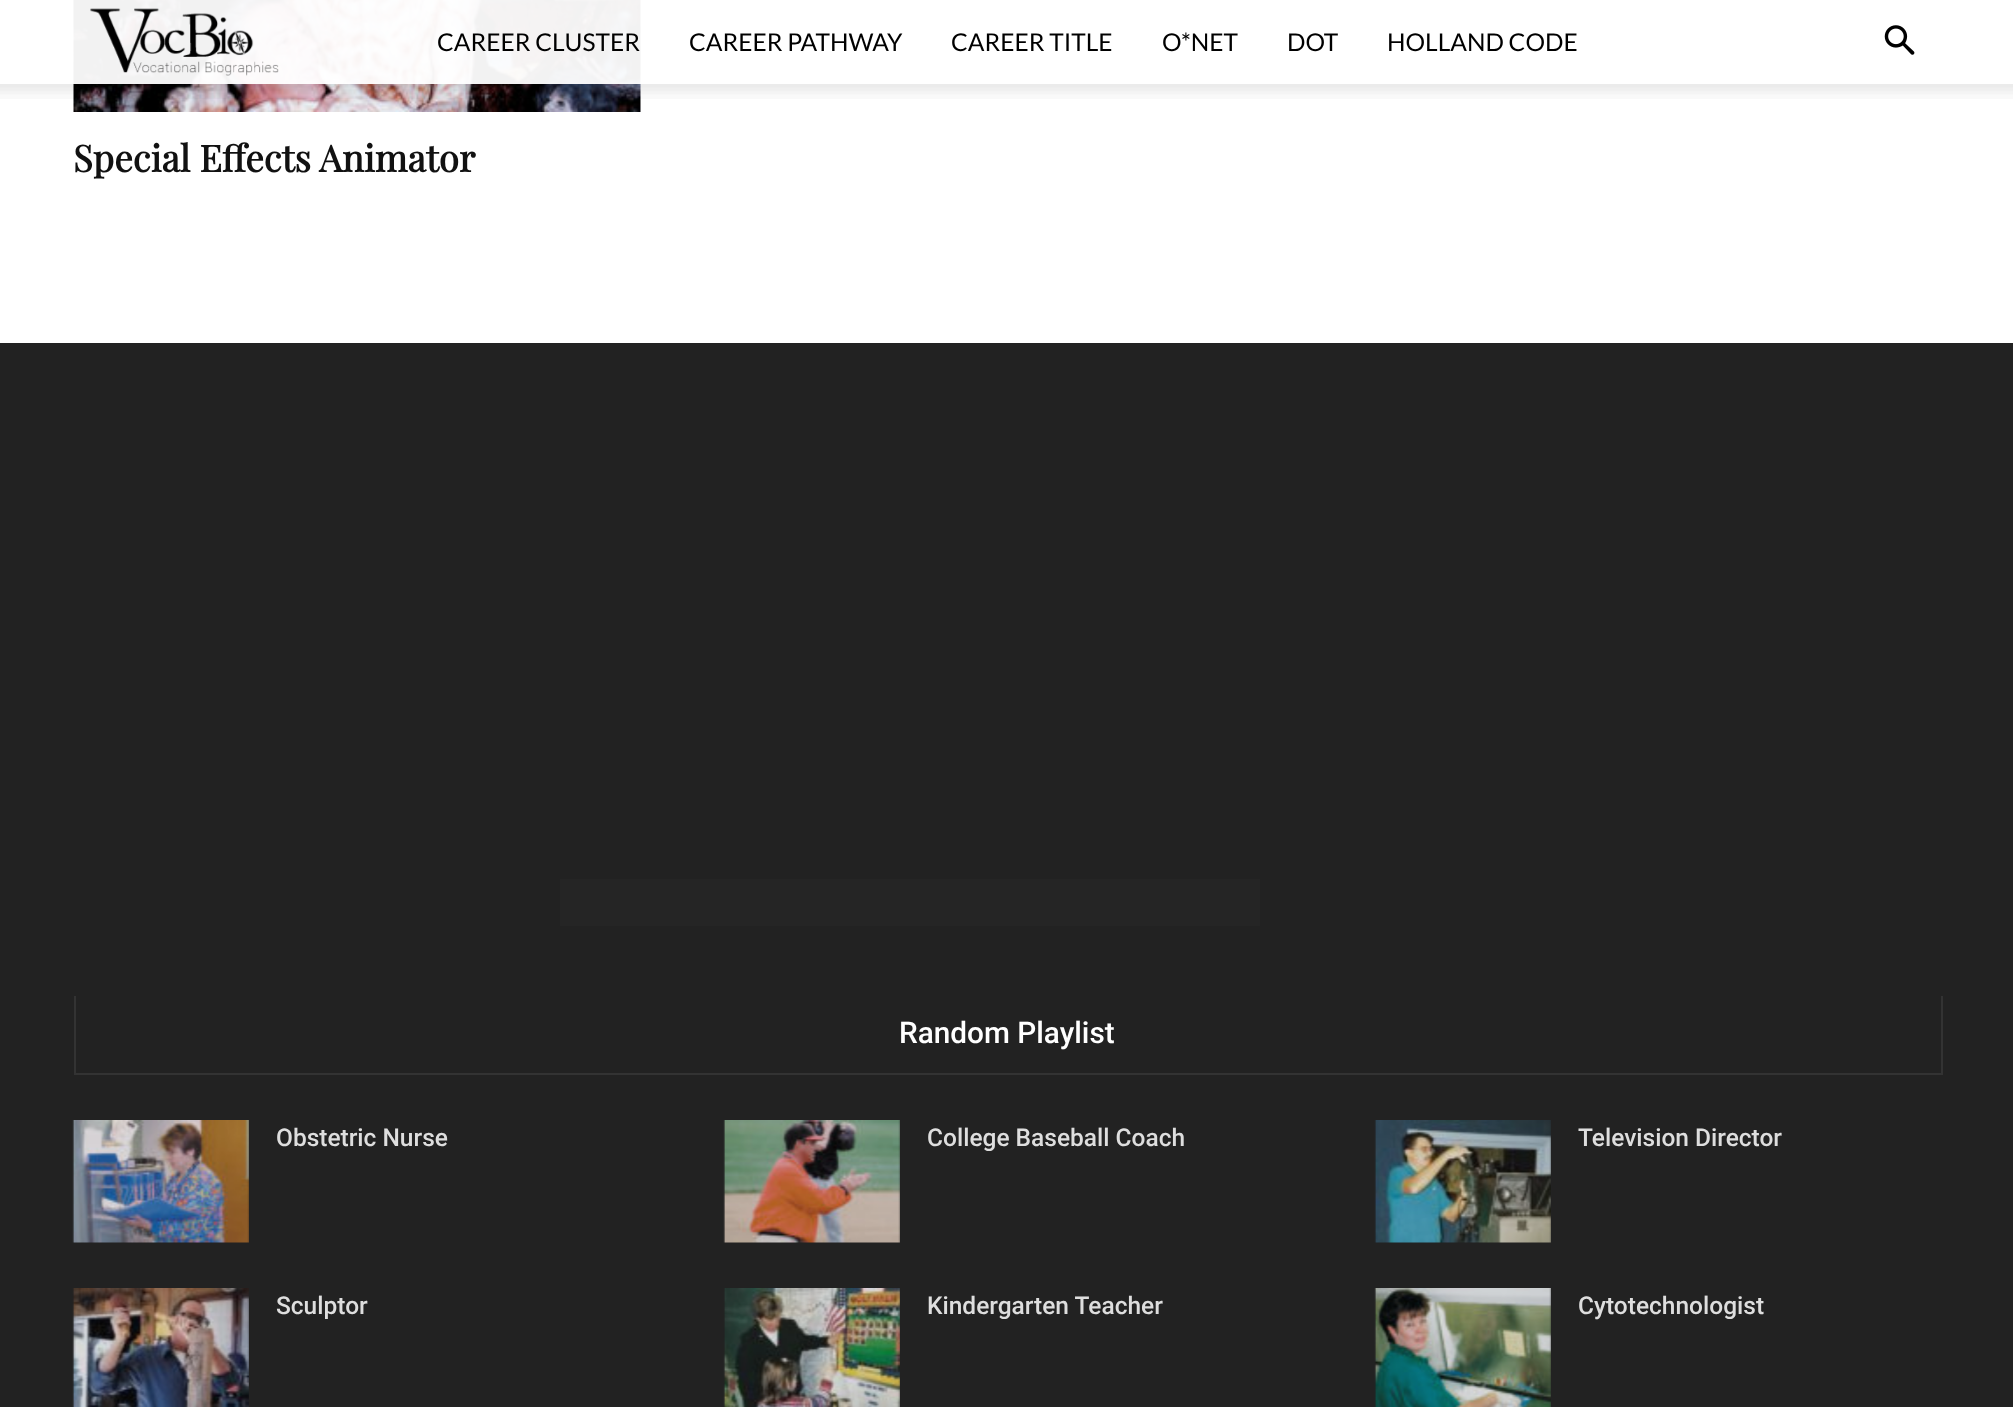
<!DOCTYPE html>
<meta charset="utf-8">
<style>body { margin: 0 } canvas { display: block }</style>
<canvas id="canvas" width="2013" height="1407"></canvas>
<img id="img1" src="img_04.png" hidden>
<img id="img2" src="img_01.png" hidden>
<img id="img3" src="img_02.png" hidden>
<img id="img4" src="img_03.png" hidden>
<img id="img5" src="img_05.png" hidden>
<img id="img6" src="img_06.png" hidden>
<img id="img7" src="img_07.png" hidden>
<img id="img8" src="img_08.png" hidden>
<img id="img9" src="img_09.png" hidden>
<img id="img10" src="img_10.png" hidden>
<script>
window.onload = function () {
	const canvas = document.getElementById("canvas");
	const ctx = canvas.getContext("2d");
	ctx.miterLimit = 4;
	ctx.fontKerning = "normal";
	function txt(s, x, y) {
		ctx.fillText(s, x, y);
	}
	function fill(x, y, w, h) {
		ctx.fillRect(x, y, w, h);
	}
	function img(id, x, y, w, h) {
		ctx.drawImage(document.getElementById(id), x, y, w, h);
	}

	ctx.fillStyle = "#FFFFFF";
	fill(0, 0, 2013, 1407);
	img("img1", 73, 0, 568, 112);
	ctx.fillStyle = "rgba(255, 255, 255, 0.95)";
	fill(73, 0, 568, 84);
	img("img2", 90, 8, 189, 68);
	img("img3", 1884, 25, 31, 30);
	img("img4", 0, 84, 2013, 15);
	ctx.fillStyle = "#222222";
	fill(0, 343, 2013, 1064);
	ctx.fillStyle = "#252525";
	fill(560, 879, 700, 47);
	ctx.strokeStyle = "#333333";
	ctx.lineWidth = 2;
	ctx.strokeRect(75, 993, 1867, 81);
	ctx.fillStyle = "#222222";
	fill(74, 992, 1869, 4);
	img("img5", 72, 1120, 177, 123);
	img("img6", 723, 1120, 177, 123);
	img("img7", 1374, 1120, 177, 123);
	img("img8", 72, 1288, 177, 119);
	img("img9", 723, 1288, 177, 119);
	img("img10", 1374, 1288, 177, 119);
	ctx.font = "24.5px Lato";
	ctx.fillStyle = "#000000";
	txt("CAREER CLUSTER", 437, 51);
	txt("CAREER PATHWAY", 689, 51);
	txt("CAREER TITLE", 951, 51);
	txt("O*NET", 1162, 51);
	txt("DOT", 1287, 51);
	txt("HOLLAND CODE", 1387, 51);
	ctx.font = "bold 36.75px Playfair Display";
	ctx.fillStyle = "#111111";
	txt("Special Effects Animator", 73, 172);
	ctx.font = "500 29.75px Roboto";
	ctx.fillStyle = "#FFFFFF";
	txt("Random Playlist", 899, 1043);
	ctx.font = "500 24.5px Roboto";
	ctx.fillStyle = "#DEDEDE";
	txt("Obstetric Nurse", 276, 1146);
	txt("College Baseball Coach", 927, 1146);
	txt("Television Director", 1578, 1146);
	txt("Sculptor", 276, 1314);
	txt("Kindergarten Teacher", 927, 1314);
	txt("Cytotechnologist", 1578, 1314);
};
</script>
